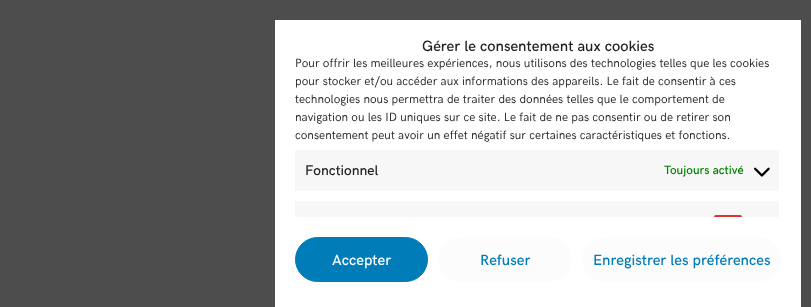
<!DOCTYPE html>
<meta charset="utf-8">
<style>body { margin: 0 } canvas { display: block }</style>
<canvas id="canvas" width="811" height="307"></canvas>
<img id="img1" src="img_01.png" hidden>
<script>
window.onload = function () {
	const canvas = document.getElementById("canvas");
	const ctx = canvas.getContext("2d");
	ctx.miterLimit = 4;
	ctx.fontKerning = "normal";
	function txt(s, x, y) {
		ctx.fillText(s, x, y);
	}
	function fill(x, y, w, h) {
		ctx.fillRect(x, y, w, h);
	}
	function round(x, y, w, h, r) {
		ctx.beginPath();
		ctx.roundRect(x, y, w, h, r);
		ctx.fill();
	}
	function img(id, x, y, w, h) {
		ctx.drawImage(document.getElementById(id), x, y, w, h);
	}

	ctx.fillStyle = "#4D4D4D";
	fill(0, 0, 811, 307);
	ctx.fillStyle = "#FFFFFF";
	fill(275, 20, 526, 287);
	ctx.fillStyle = "#F7F7F7";
	fill(295, 150, 484, 41);
	img("img1", 754, 167, 16, 10);
	fill(295, 201, 484, 16);
	ctx.fillStyle = "#DD3333";
	ctx.beginPath();
	ctx.roundRect(714, 215, 28, 2, [7.5, 7.5, 0, 0]);
	ctx.fill();
	ctx.fillStyle = "#007CB8";
	ctx.beginPath();
	ctx.roundRect(295.5, 237.5, 132, 44, 22);
	ctx.fill();
	ctx.strokeStyle = "#007CB8";
	ctx.stroke();
	ctx.fillStyle = "#FCFCFC";
	round(438, 237, 134, 45, 22.5);
	round(582, 237, 199, 45, 22.5);
	ctx.font = "500 15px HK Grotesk";
	ctx.fillStyle = "#222222";
	txt("Gérer le consentement aux cookies", 422, 51);
	ctx.font = "12px HK Grotesk";
	txt("Pour offrir les meilleures expériences, nous utilisons des technologies telles que les cookies", 295, 67);
	txt("pour stocker et/ou accéder aux informations des appareils. Le fait de consentir à ces", 295, 85);
	txt("technologies nous permettra de traiter des données telles que le comportement de", 295, 103);
	txt("navigation ou les ID uniques sur ce site. Le fait de ne pas consentir ou de retirer son", 295, 121);
	txt("consentement peut avoir un effet négatif sur certaines caractéristiques et fonctions.", 295, 139);
	ctx.font = "500 14px HK Grotesk";
	txt("Fonctionnel", 305, 175);
	ctx.font = "500 12px HK Grotesk";
	ctx.fillStyle = "#008000";
	txt("Toujours activé", 664, 174);
	ctx.font = "500 15px HK Grotesk";
	ctx.fillStyle = "#FFFFFF";
	txt("Accepter", 332, 265);
	ctx.fillStyle = "#007CB8";
	txt("Refuser", 480, 265);
	txt("Enregistrer les préférences", 593, 265);
};
</script>
